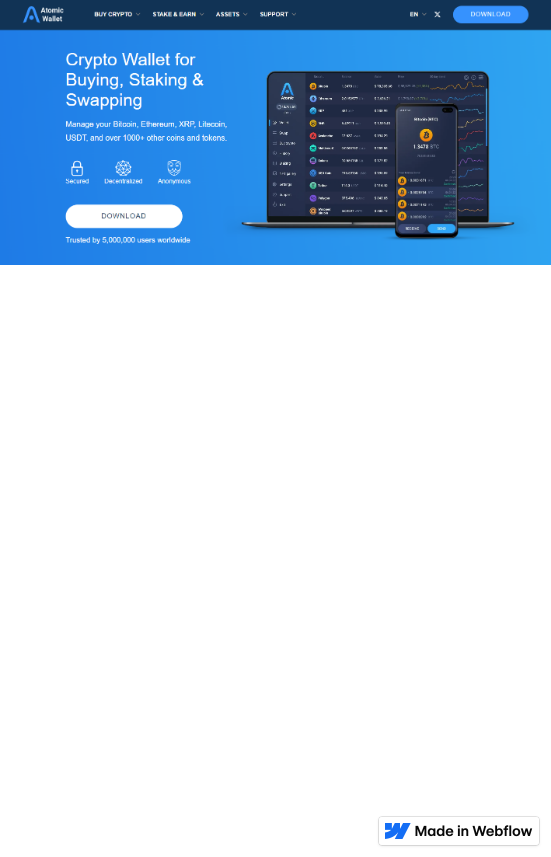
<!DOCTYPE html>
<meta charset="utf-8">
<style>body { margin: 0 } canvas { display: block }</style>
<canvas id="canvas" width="551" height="857"></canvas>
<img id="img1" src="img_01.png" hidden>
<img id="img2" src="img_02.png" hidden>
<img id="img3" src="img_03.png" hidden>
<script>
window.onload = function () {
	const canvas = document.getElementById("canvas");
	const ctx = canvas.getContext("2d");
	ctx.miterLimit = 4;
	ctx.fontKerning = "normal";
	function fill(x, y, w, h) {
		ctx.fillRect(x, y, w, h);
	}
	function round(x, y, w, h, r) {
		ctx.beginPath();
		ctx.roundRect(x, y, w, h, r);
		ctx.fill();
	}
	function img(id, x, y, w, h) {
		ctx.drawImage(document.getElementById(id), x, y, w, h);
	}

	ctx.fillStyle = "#FFFFFF";
	fill(0, 0, 551, 857);
	img("img1", 0, 0, 551, 265);
	ctx.fillStyle = "rgba(0, 0, 0, 0.1)";
	ctx.filter = "blur(1.5px)";
	ctx.beginPath();
	ctx.roundRect(379, 818, 160, 28, 3);
	ctx.fill();
	ctx.filter = "none";
	ctx.beginPath();
	ctx.roundRect(378.5, 816.5, 161, 29, 3.5);
	ctx.strokeStyle = "rgba(0, 0, 0, 0.1)";
	ctx.stroke();
	ctx.fillStyle = "#FFFFFF";
	round(379, 817, 160, 28, 3);
	img("img2", 385, 823, 26, 16);
	img("img3", 415, 825, 118, 12);
};
</script>
